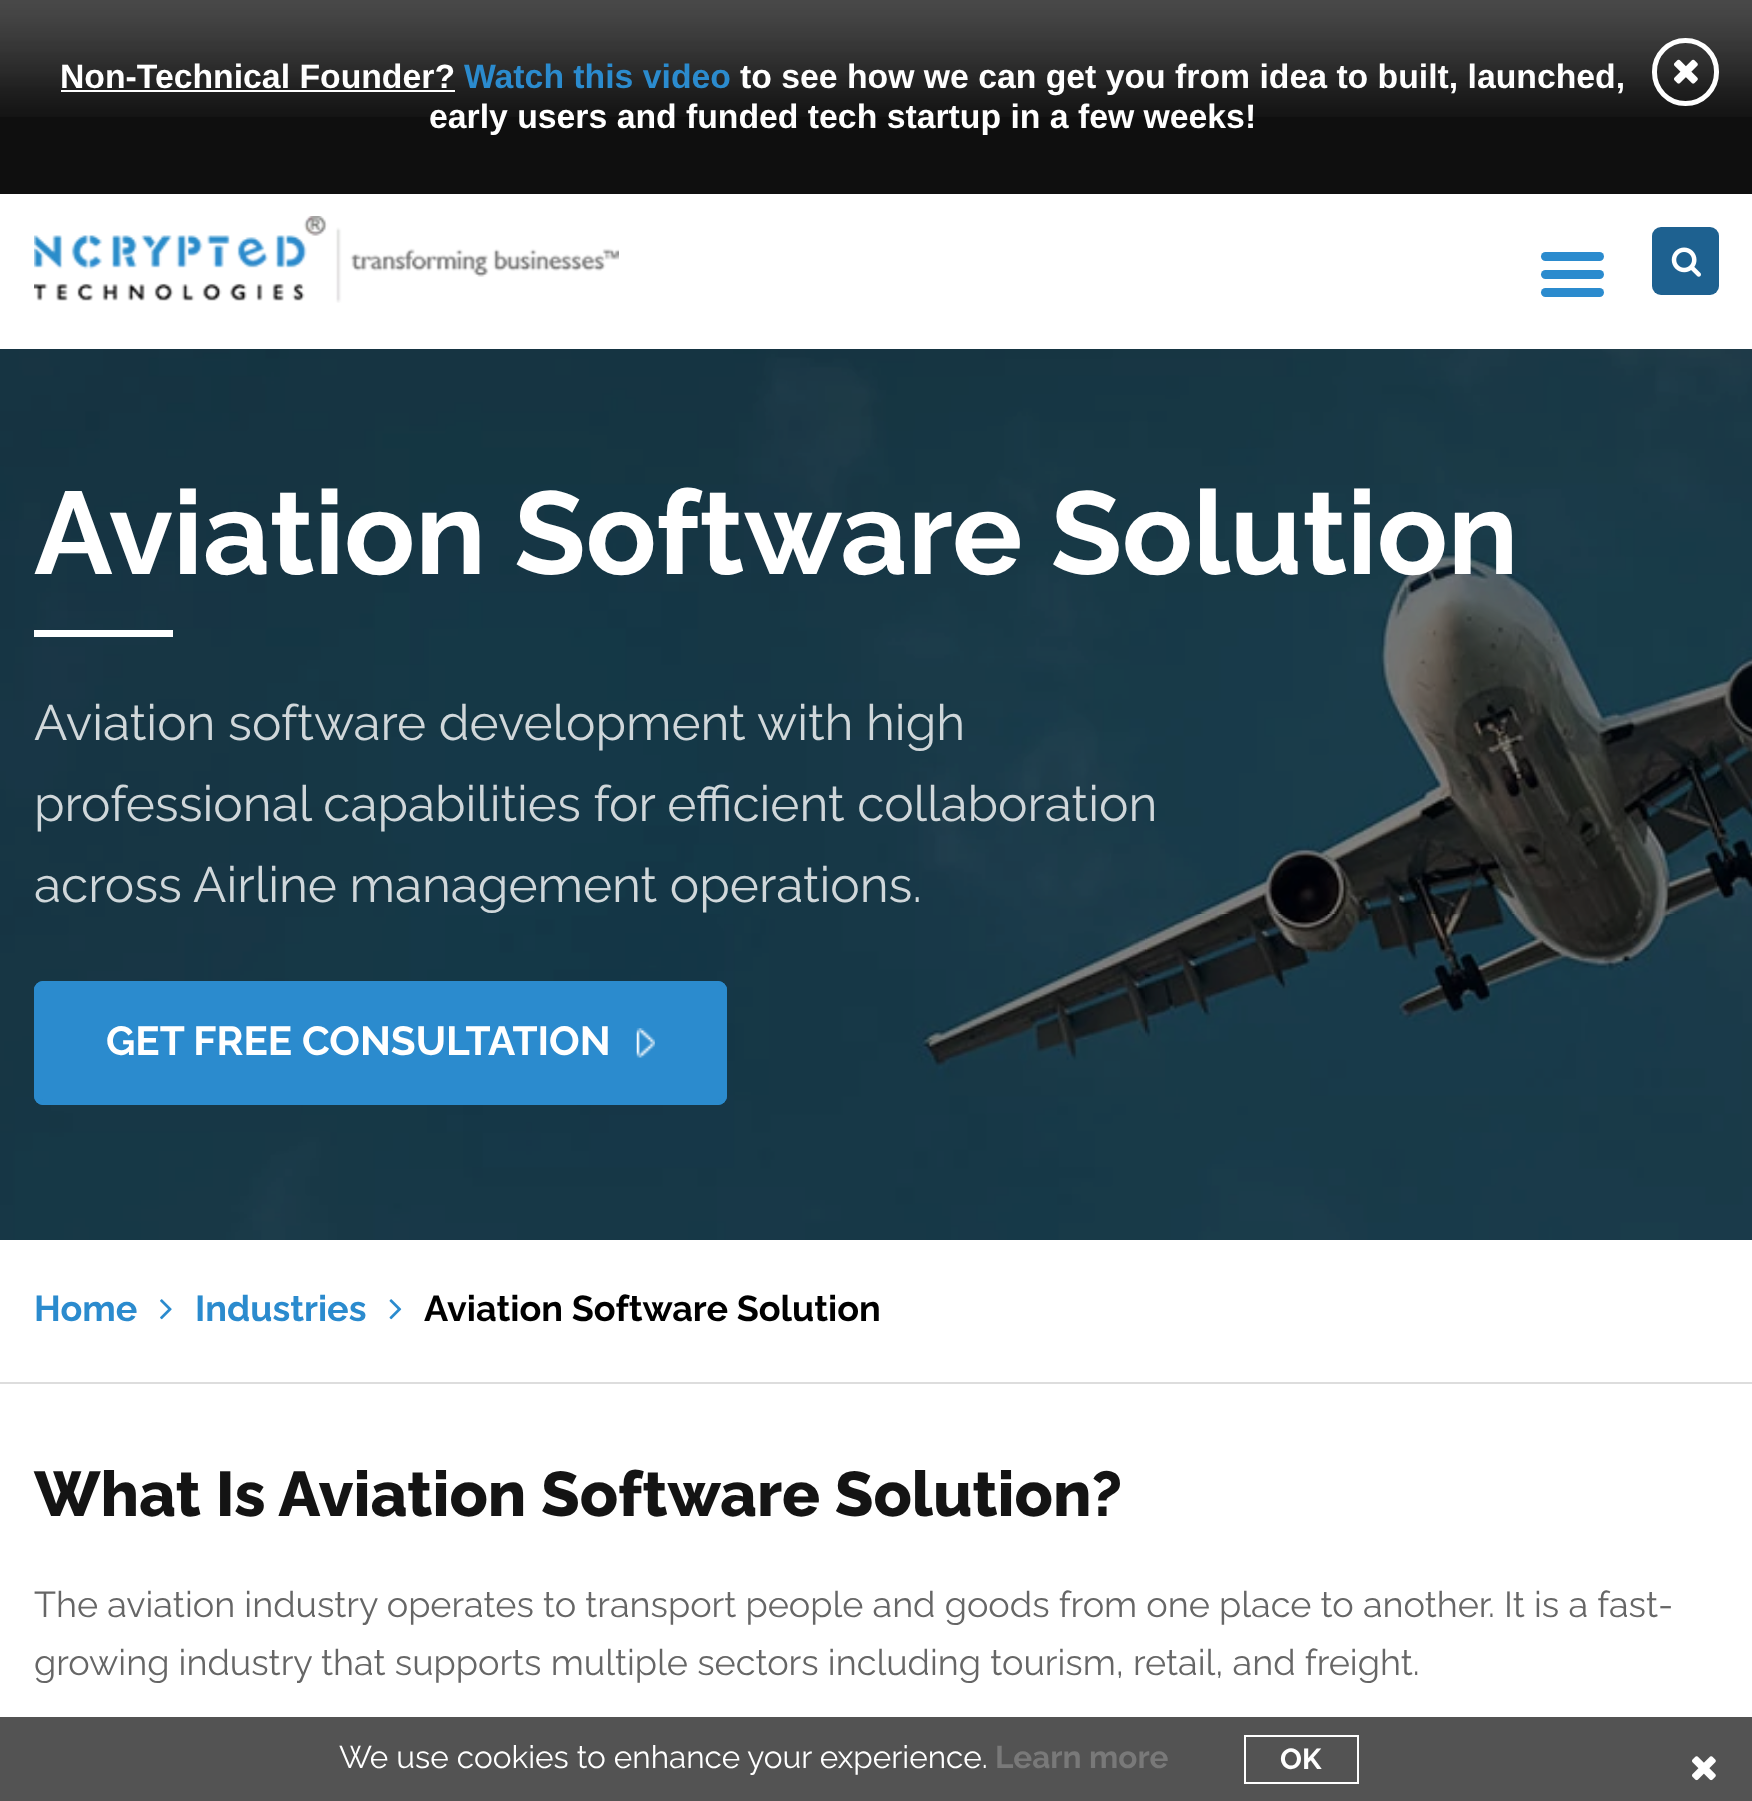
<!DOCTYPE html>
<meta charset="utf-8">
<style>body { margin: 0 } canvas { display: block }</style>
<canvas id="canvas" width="1752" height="1801"></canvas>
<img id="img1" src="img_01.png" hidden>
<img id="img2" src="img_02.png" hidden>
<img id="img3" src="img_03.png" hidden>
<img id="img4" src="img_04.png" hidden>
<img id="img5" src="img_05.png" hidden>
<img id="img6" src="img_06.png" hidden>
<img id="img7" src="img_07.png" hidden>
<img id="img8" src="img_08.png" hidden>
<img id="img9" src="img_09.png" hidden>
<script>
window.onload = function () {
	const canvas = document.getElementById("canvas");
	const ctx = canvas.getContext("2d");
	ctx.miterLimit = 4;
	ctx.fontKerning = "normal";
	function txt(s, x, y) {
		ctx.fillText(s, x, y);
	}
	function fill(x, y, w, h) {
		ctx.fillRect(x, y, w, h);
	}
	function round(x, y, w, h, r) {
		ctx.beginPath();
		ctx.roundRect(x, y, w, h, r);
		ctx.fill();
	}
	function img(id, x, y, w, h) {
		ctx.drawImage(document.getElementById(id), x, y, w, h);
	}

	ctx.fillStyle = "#FFFFFF";
	fill(0, 0, 1752, 1801);
	ctx.fillStyle = "#0F0F0F";
	fill(0, 117, 1752, 77);
	img("img1", 0, 0, 1752, 117);
	ctx.fillStyle = "#FFFFFF";
	fill(61, 90, 394, 2);
	ctx.beginPath();
	ctx.roundRect(1654.5, 40.5, 62, 63, 31);
	ctx.strokeStyle = "#FFFFFF";
	ctx.lineWidth = 5;
	ctx.stroke();
	img("img2", 1674, 59, 24, 25);
	img("img3", 34, 216, 585, 87);
	ctx.fillStyle = "#2B8BCE";
	round(1541, 252, 63, 9, 4.5);
	round(1541, 270, 63, 9, 4.5);
	round(1541, 288, 63, 9, 4.5);
	ctx.fillStyle = "#1E6190";
	round(1652, 227, 67, 68, 9);
	img("img4", 1671, 247, 30, 30);
	img("img5", 0, 349, 1752, 891);
	ctx.fillStyle = "#FFFFFF";
	fill(34, 630, 139, 7);
	ctx.fillStyle = "#2B8BCE";
	round(34, 981, 693, 124, 9);
	img("img6", 636, 1028, 19, 30);
	ctx.beginPath();
	ctx.roundRect(36.5, 983.5, 688, 119, 6.5);
	ctx.strokeStyle = "#2B8BCE";
	ctx.stroke();
	ctx.fillStyle = "#DDDDDD";
	fill(0, 1382, 1752, 2);
	img("img7", 160, 1299, 12, 21);
	img("img8", 389, 1299, 13, 21);
	ctx.fillStyle = "#535353";
	fill(0, 1717, 1752, 84);
	ctx.strokeStyle = "#FFFFFF";
	ctx.lineWidth = 2;
	ctx.strokeRect(1245, 1736, 113, 47);
	img("img9", 1692, 1756, 24, 25);
	ctx.font = "bold 33.75px Liberation Sans";
	ctx.fillStyle = "#FFFFFF";
	txt("Non-Technical Founder?", 60, 88);
	ctx.fillStyle = "#2B8BCE";
	txt("Watch this video", 464, 88);
	ctx.fillStyle = "#FFFFFF";
	txt("to see how we can get you from idea to built, launched,", 740, 88);
	txt("early users and funded tech startup in a few weeks!", 429, 128);
	ctx.font = "bold 117px Raleway";
	txt("Aviation Software Solution", 34, 574);
	ctx.font = "49.5px Raleway";
	ctx.fillStyle = "#D0D7DA";
	txt("Aviation software development with high", 34, 740);
	txt("professional capabilities for efficient collaboration", 34, 821);
	txt("across Airline management operations.", 34, 902);
	ctx.font = "bold 40.5px Raleway";
	ctx.fillStyle = "#FFFFFF";
	txt("GET FREE CONSULTATION", 106, 1055);
	ctx.font = "bold 36px Raleway";
	ctx.fillStyle = "#2B8BCE";
	txt("Home", 34, 1321);
	txt("Industries", 195, 1321);
	ctx.fillStyle = "#000000";
	txt("Aviation Software Solution", 424, 1321);
	ctx.font = "800 63px Raleway";
	ctx.fillStyle = "#141414";
	txt("What Is Aviation Software Solution?", 34, 1516);
	ctx.font = "36px Raleway";
	ctx.fillStyle = "#666666";
	txt("The aviation industry operates to transport people and goods from one place to another. It is a fast-", 34, 1617);
	txt("growing industry that supports multiple sectors including tourism, retail, and freight.", 34, 1675);
	ctx.font = "31.5px Raleway";
	ctx.fillStyle = "#FFFFFF";
	txt("We use cookies to enhance your experience.", 339, 1768);
	ctx.font = "bold 31.5px Raleway";
	ctx.fillStyle = "#797979";
	txt("Learn more", 995, 1768);
	ctx.font = "bold 29px Raleway";
	ctx.fillStyle = "#FFFFFF";
	txt("OK", 1280, 1769);
};
</script>
